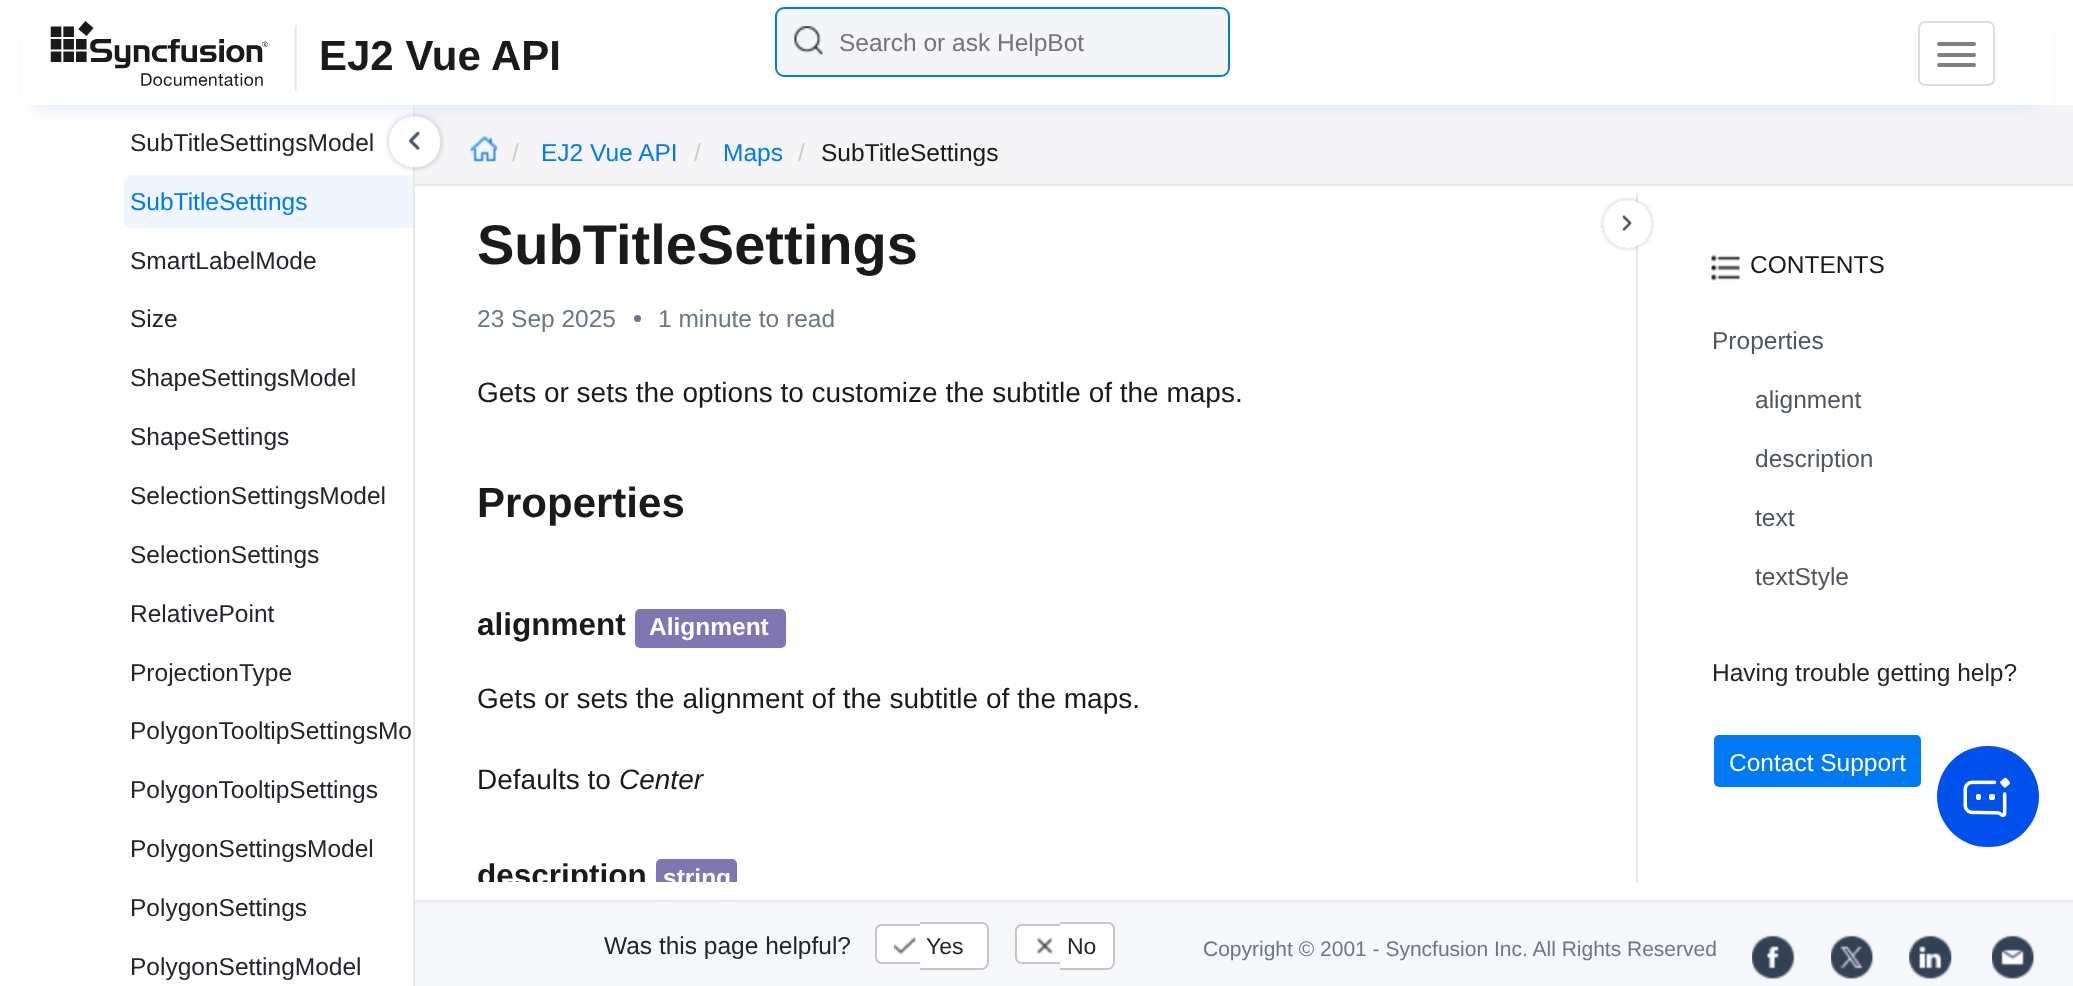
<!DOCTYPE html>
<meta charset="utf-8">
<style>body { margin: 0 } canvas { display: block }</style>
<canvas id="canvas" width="2073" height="986"></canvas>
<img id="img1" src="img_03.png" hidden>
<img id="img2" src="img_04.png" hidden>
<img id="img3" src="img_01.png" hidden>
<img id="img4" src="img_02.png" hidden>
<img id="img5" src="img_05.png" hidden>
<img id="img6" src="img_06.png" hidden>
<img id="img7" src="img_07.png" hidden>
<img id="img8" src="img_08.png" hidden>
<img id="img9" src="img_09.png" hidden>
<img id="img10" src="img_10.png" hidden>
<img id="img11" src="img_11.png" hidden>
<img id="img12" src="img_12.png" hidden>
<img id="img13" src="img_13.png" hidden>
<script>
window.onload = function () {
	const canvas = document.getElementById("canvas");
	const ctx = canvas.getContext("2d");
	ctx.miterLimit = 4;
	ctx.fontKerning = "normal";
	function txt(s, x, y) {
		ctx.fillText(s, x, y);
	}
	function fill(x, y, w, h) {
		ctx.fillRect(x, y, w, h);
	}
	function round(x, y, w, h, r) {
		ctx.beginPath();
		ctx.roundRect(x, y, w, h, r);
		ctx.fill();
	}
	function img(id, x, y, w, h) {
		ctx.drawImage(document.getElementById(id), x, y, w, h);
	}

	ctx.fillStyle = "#FFFFFF";
	fill(0, 0, 2073, 986);
	ctx.fillStyle = "#F5F5F7";
	fill(415, 105, 1658, 79);
	img("img1", 470, 135, 28, 27);
	ctx.fillStyle = "#E7E7E7";
	fill(413, 105, 2, 881);
	img("img2", 385, 112, 59, 59);
	ctx.fillStyle = "#E2EAF5";
	ctx.filter = "blur(9.5px)";
	ctx.beginPath();
	ctx.rect(32, 25, 2010, 84);
	ctx.fill();
	ctx.filter = "none";
	ctx.fillStyle = "#FFFFFF";
	fill(21, 12, 2032, 93);
	img("img3", 50, 21, 247, 70);
	ctx.fillStyle = "#F4F5F8";
	round(775, 7, 455, 70, 9);
	img("img4", 794, 26, 29, 29);
	ctx.beginPath();
	ctx.roundRect(776, 8, 453, 68, 8);
	ctx.strokeStyle = "#0079F3";
	ctx.lineWidth = 2;
	ctx.stroke();
	ctx.beginPath();
	ctx.roundRect(1919, 22, 75, 63, 6);
	ctx.strokeStyle = "#DDDDDD";
	ctx.stroke();
	ctx.fillStyle = "#808080";
	round(1937, 42, 39, 4, 2);
	round(1937, 53, 39, 4, 2);
	round(1937, 63, 39, 4, 2);
	ctx.fillStyle = "#E7E7E7";
	fill(415, 184, 1658, 2);
	ctx.fillStyle = "#EFF6FF";
	ctx.beginPath();
	ctx.roundRect(124, 175, 289, 53, [7, 0, 0, 7]);
	ctx.fill();
	ctx.fillStyle = "#E7E7E7";
	fill(1636, 193, 2, 689);
	ctx.fillStyle = "#6C7786";
	ctx.beginPath();
	ctx.arc(637.5, 318.5, 3.5, 0, Math.PI * 2);
	ctx.fill();
	ctx.fillStyle = "#8076B2";
	round(635, 609, 151, 39, 5);
	ctx.beginPath();
	ctx.roundRect(656, 859, 81, 23, [5, 5, 0, 0]);
	ctx.fill();
	img("img5", 1600, 197, 55, 54);
	img("img6", 1711, 254, 29, 27);
	ctx.fillStyle = "#0079F3";
	ctx.beginPath();
	ctx.roundRect(1713, 734, 209, 54, 6);
	ctx.fill();
	ctx.strokeStyle = "#FFFFFF";
	ctx.stroke();
	ctx.fillStyle = "#0050EB";
	round(1937, 746, 102, 101, 50.5);
	img("img7", 1963, 777, 47, 41);
	ctx.fillStyle = "#F5F7FA";
	fill(415, 902, 1658, 84);
	ctx.fillStyle = "#EAEAEA";
	fill(415, 900, 1658, 2);
	ctx.fillStyle = "#FFFFFF";
	ctx.beginPath();
	ctx.roundRect(875, 924, 46, 40, [7, 0, 0, 7]);
	ctx.fill();
	ctx.fillStyle = "#C5C5C5";
	ctx.beginPath();
	ctx.moveTo(882, 924);
	ctx.lineTo(920, 924);
	ctx.lineTo(920, 964);
	ctx.lineTo(882, 964);
	ctx.bezierCurveTo(878, 964, 875, 961, 875, 957);
	ctx.lineTo(875, 931);
	ctx.bezierCurveTo(875, 927, 878, 924, 882, 924);
	ctx.closePath();
	ctx.moveTo(882, 926);
	ctx.lineTo(920, 926);
	ctx.lineTo(920, 962);
	ctx.lineTo(882, 962);
	ctx.bezierCurveTo(879, 962, 877, 960, 877, 957);
	ctx.lineTo(877, 931);
	ctx.bezierCurveTo(877, 928, 879, 926, 882, 926);
	ctx.closePath();
	ctx.fill("evenodd");
	ctx.fillStyle = "#FFFFFF";
	ctx.beginPath();
	ctx.roundRect(921, 922, 68, 48, [0, 7, 7, 0]);
	ctx.fill();
	ctx.fillStyle = "#C5C5C5";
	ctx.beginPath();
	ctx.moveTo(920, 922);
	ctx.lineTo(982, 922);
	ctx.bezierCurveTo(986, 922, 989, 925, 989, 929);
	ctx.lineTo(989, 962);
	ctx.bezierCurveTo(989, 966, 986, 970, 982, 970);
	ctx.lineTo(920, 970);
	ctx.closePath();
	ctx.moveTo(920, 924);
	ctx.lineTo(982, 924);
	ctx.bezierCurveTo(985, 924, 987, 926, 987, 929);
	ctx.lineTo(987, 962);
	ctx.bezierCurveTo(987, 965, 985, 968, 982, 968);
	ctx.lineTo(920, 968);
	ctx.closePath();
	ctx.fill("evenodd");
	img("img8", 894, 937, 22, 18);
	ctx.fillStyle = "#FFFFFF";
	ctx.beginPath();
	ctx.roundRect(1015, 924, 46, 40, [7, 0, 0, 7]);
	ctx.fill();
	ctx.fillStyle = "#C5C5C5";
	ctx.beginPath();
	ctx.moveTo(1022, 924);
	ctx.lineTo(1060, 924);
	ctx.lineTo(1060, 964);
	ctx.lineTo(1022, 964);
	ctx.bezierCurveTo(1018, 964, 1015, 961, 1015, 957);
	ctx.lineTo(1015, 931);
	ctx.bezierCurveTo(1015, 927, 1018, 924, 1022, 924);
	ctx.closePath();
	ctx.moveTo(1022, 926);
	ctx.lineTo(1060, 926);
	ctx.lineTo(1060, 962);
	ctx.lineTo(1022, 962);
	ctx.bezierCurveTo(1019, 962, 1017, 960, 1017, 957);
	ctx.lineTo(1017, 931);
	ctx.bezierCurveTo(1017, 928, 1019, 926, 1022, 926);
	ctx.closePath();
	ctx.fill("evenodd");
	ctx.fillStyle = "#FFFFFF";
	ctx.beginPath();
	ctx.roundRect(1061, 922, 54, 48, [0, 7, 7, 0]);
	ctx.fill();
	ctx.fillStyle = "#C5C5C5";
	ctx.beginPath();
	ctx.moveTo(1060, 922);
	ctx.lineTo(1108, 922);
	ctx.bezierCurveTo(1112, 922, 1115, 925, 1115, 929);
	ctx.lineTo(1115, 962);
	ctx.bezierCurveTo(1115, 966, 1112, 970, 1108, 970);
	ctx.lineTo(1060, 970);
	ctx.closePath();
	ctx.moveTo(1060, 924);
	ctx.lineTo(1108, 924);
	ctx.bezierCurveTo(1111, 924, 1113, 926, 1113, 929);
	ctx.lineTo(1113, 962);
	ctx.bezierCurveTo(1113, 965, 1111, 968, 1108, 968);
	ctx.lineTo(1060, 968);
	ctx.closePath();
	ctx.fill("evenodd");
	img("img9", 1037, 937, 16, 18);
	img("img10", 1752, 935, 43, 44);
	img("img11", 1831, 935, 43, 44);
	img("img12", 1909, 935, 43, 44);
	img("img13", 1992, 935, 43, 44);
	ctx.font = "bold 42px Liberation Sans";
	ctx.fillStyle = "#1A1A1A";
	txt("EJ2 Vue API", 319, 70);
	ctx.font = "24.5px Liberation Sans";
	ctx.fillStyle = "#757575";
	txt("Search or ask HelpBot", 839, 51);
	ctx.fillStyle = "#CCCCCC";
	txt("/", 512, 161);
	ctx.fillStyle = "#0079F3";
	txt("EJ2 Vue API", 541, 161);
	ctx.fillStyle = "#CCCCCC";
	txt("/", 694, 161);
	ctx.fillStyle = "#0079F3";
	txt("Maps", 723, 161);
	ctx.fillStyle = "#CCCCCC";
	txt("/", 798, 161);
	ctx.fillStyle = "#1A1A1A";
	txt("SubTitleSettings", 821, 161);
	ctx.fillStyle = "#22252A";
	txt("SubTitleSettingsModel", 130, 151);
	ctx.fillStyle = "#0079F3";
	txt("SubTitleSettings", 130, 210);
	ctx.fillStyle = "#22252A";
	txt("SmartLabelMode", 130, 269);
	txt("Size", 130, 327);
	txt("ShapeSettingsModel", 130, 386);
	txt("ShapeSettings", 130, 445);
	txt("SelectionSettingsModel", 130, 504);
	txt("SelectionSettings", 130, 563);
	txt("RelativePoint", 130, 622);
	txt("ProjectionType", 130, 681);
	txt("PolygonTooltipSettingsMo", 130, 739);
	txt("PolygonTooltipSettings", 130, 798);
	txt("PolygonSettingsModel", 130, 857);
	txt("PolygonSettings", 130, 916);
	txt("PolygonSettingModel", 130, 975);
	ctx.font = "bold 56px Liberation Sans";
	ctx.fillStyle = "#1A1A1A";
	txt("SubTitleSettings", 477, 264);
	ctx.font = "24.5px Liberation Sans";
	ctx.fillStyle = "#6C7786";
	txt("23 Sep 2025", 477, 327);
	txt("1 minute to read", 658, 327);
	ctx.font = "28px Liberation Sans";
	ctx.fillStyle = "#1A1A1A";
	txt("Gets or sets the options to customize the subtitle of the maps.", 477, 402);
	ctx.font = "bold 42px Liberation Sans";
	txt("Properties", 477, 517);
	ctx.font = "bold 31.5px Liberation Sans";
	txt("alignment", 477, 635);
	ctx.font = "bold 24.5px Liberation Sans";
	ctx.fillStyle = "#FFFFFF";
	txt("Alignment", 649, 635);
	ctx.font = "28px Liberation Sans";
	ctx.fillStyle = "#1A1A1A";
	txt("Gets or sets the alignment of the subtitle of the maps.", 477, 708);
	txt("Defaults to", 477, 789);
	ctx.font = "italic 28px Liberation Sans";
	txt("Center", 619, 789);
	ctx.save();
	ctx.beginPath();
	ctx.rect(478, 193, 1158, 689);
	ctx.clip();
	ctx.font = "bold 31.5px Liberation Sans";
	txt("description", 477, 886);
	ctx.font = "bold 24.5px Liberation Sans";
	ctx.fillStyle = "#FFFFFF";
	txt("string", 663, 886);
	ctx.restore();
	ctx.font = "24.5px Liberation Sans";
	txt("CONTENTS", 1750, 273);
	ctx.fillStyle = "#50565F";
	txt("Properties", 1712, 349);
	txt("alignment", 1755, 408);
	txt("description", 1755, 467);
	txt("text", 1755, 526);
	txt("textStyle", 1755, 585);
	ctx.fillStyle = "#22252A";
	txt("Having trouble getting help?", 1712, 681);
	ctx.fillStyle = "#FFFFFF";
	txt("Contact Support", 1729, 771);
	ctx.fillStyle = "#22252A";
	txt("Was this page helpful?", 604, 954);
	ctx.font = "23px Liberation Sans";
	txt("Yes", 926, 954);
	txt("No", 1067, 954);
	ctx.font = "21px Liberation Sans";
	ctx.fillStyle = "#6C7786";
	txt("Copyright © 2001 - Syncfusion Inc. All Rights Reserved", 1203, 956);
};
</script>
